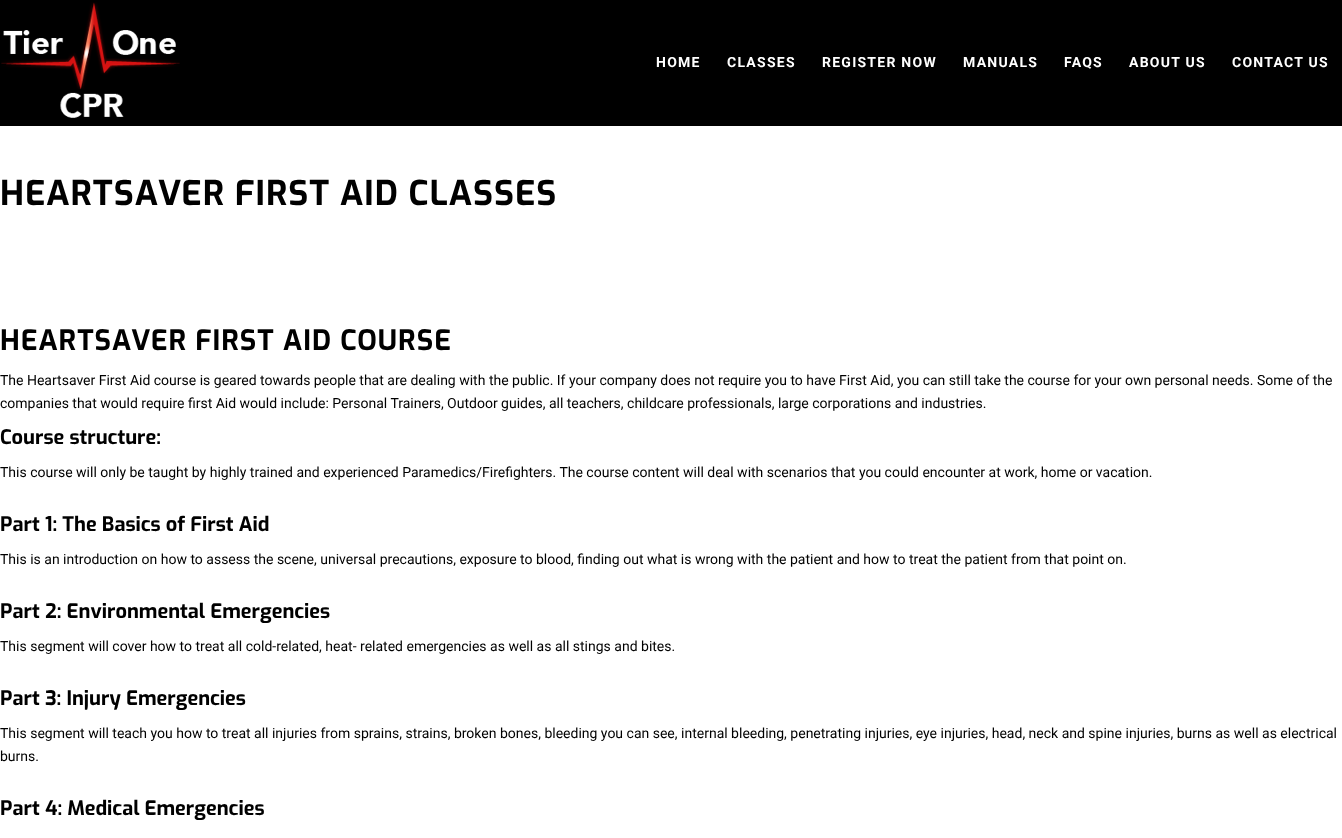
<!DOCTYPE html>
<meta charset="utf-8">
<style>body { margin: 0 } canvas { display: block }</style>
<canvas id="canvas" width="1342" height="838"></canvas>
<img id="img1" src="img_01.png" hidden>
<script>
window.onload = function () {
	const canvas = document.getElementById("canvas");
	const ctx = canvas.getContext("2d");
	ctx.miterLimit = 4;
	ctx.fontKerning = "normal";
	function txt(s, x, y) {
		ctx.fillText(s, x, y);
	}
	function fill(x, y, w, h) {
		ctx.fillRect(x, y, w, h);
	}
	function img(id, x, y, w, h) {
		ctx.drawImage(document.getElementById(id), x, y, w, h);
	}

	ctx.fillStyle = "#000000";
	fill(0, 0, 1342, 838);
	img("img1", 1, 2, 179, 116);
	ctx.fillStyle = "#FFFFFF";
	fill(0, 126, 1342, 712);
	ctx.letterSpacing = "1.25px";
	ctx.font = "bold 14px Roboto";
	txt("HOME", 656, 67);
	txt("CLASSES", 727, 67);
	txt("REGISTER NOW", 822, 67);
	txt("MANUALS", 963, 67);
	txt("FAQS", 1064, 67);
	txt("ABOUT US", 1129, 67);
	txt("CONTACT US", 1232, 67);
	ctx.letterSpacing = "1px";
	ctx.font = "bold 34px Exo";
	ctx.fillStyle = "#000000";
	txt("HEARTSAVER FIRST AID CLASSES", 0, 205);
	ctx.font = "bold 28px Exo";
	txt("HEARTSAVER FIRST AID COURSE", 0, 350);
	ctx.letterSpacing = "0px";
	ctx.font = "14px Roboto";
	txt("The Heartsaver First Aid course is geared towards people that are dealing with the public. If your company does not require you to have First Aid, you can still take the course for your own personal needs. Some of the", 0, 385);
	txt("companies that would require first Aid would include: Personal Trainers, Outdoor guides, all teachers, childcare professionals, large corporations and industries.", 0, 408);
	ctx.font = "bold 20px Exo";
	txt("Course structure:", 0, 444);
	ctx.font = "14px Roboto";
	txt("This course will only be taught by highly trained and experienced Paramedics/Firefighters. The course content will deal with scenarios that you could encounter at work, home or vacation.", 0, 477);
	ctx.font = "bold 20px Exo";
	txt("Part 1: The Basics of First Aid", 0, 531);
	ctx.font = "14px Roboto";
	txt("This is an introduction on how to assess the scene, universal precautions, exposure to blood, finding out what is wrong with the patient and how to treat the patient from that point on.", 0, 564);
	ctx.font = "bold 20px Exo";
	txt("Part 2: Environmental Emergencies", 0, 618);
	ctx.font = "14px Roboto";
	txt("This segment will cover how to treat all cold-related, heat- related emergencies as well as all stings and bites.", 0, 651);
	ctx.font = "bold 20px Exo";
	txt("Part 3: Injury Emergencies", 0, 705);
	ctx.font = "14px Roboto";
	txt("This segment will teach you how to treat all injuries from sprains, strains, broken bones, bleeding you can see, internal bleeding, penetrating injuries, eye injuries, head, neck and spine injuries, burns as well as electrical", 0, 738);
	txt("burns.", 0, 761);
	ctx.font = "bold 20px Exo";
	txt("Part 4: Medical Emergencies", 0, 815);
};
</script>
